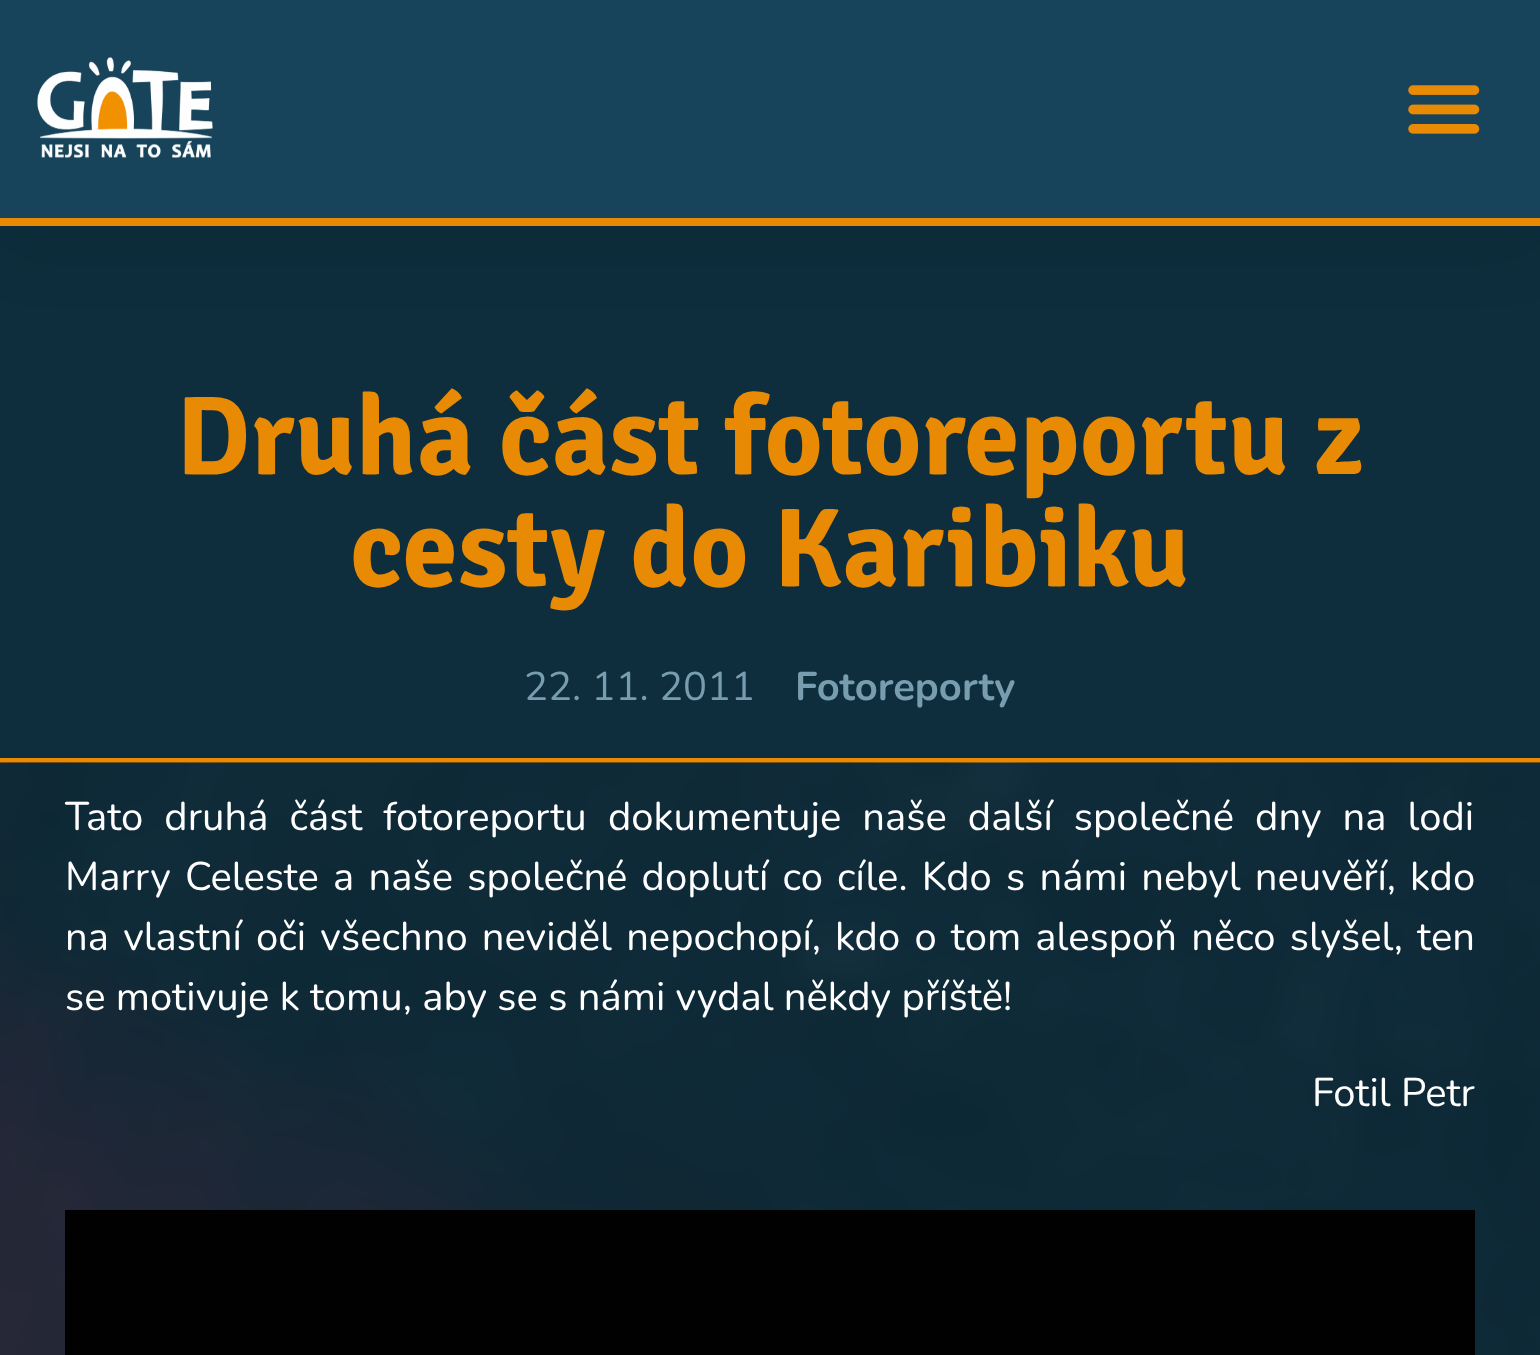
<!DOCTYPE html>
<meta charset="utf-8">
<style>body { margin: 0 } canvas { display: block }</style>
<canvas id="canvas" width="1540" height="1355"></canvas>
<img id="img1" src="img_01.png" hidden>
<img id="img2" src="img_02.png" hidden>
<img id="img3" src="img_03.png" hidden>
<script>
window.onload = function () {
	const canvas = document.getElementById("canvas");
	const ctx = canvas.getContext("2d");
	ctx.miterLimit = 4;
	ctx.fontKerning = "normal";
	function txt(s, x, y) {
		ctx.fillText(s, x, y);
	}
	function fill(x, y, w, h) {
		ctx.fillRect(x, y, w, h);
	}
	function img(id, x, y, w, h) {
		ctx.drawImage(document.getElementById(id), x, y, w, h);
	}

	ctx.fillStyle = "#E88A03";
	fill(0, 0, 1540, 1355);
	ctx.fillStyle = "#0E2E3D";
	fill(0, 226, 1540, 532);
	ctx.fillStyle = "rgba(0, 0, 0, 0.1)";
	ctx.filter = "blur(37.5px)";
	ctx.beginPath();
	ctx.rect(0, 13, 1540, 225);
	ctx.fill();
	ctx.filter = "none";
	ctx.fillStyle = "#17445B";
	fill(0, 0, 1540, 218);
	ctx.fillStyle = "#E88A03";
	fill(0, 218, 1540, 8);
	img("img1", 37, 57, 176, 101);
	img("img2", 1408, 85, 72, 49);
	img("img3", 0, 762, 1540, 593);
	ctx.fillStyle = "#010101";
	fill(65, 1210, 1410, 145);
	ctx.font = "bold 112px Signika Negative";
	ctx.fillStyle = "#E88A03";
	txt("Druhá část fotoreportu z", 176, 474);
	txt("cesty do Karibiku", 350, 586);
	ctx.font = "40px Nunito";
	ctx.fillStyle = "#779DAF";
	txt("22. 11. 2011", 524, 700);
	ctx.font = "bold 40px Nunito";
	txt("Fotoreporty", 795, 700);
	ctx.wordSpacing = "10.75px";
	ctx.font = "40px Nunito";
	ctx.fillStyle = "#FFFFFF";
	txt("Tato druhá část fotoreportu dokumentuje naše další společné dny na lodi", 65, 830);
	ctx.wordSpacing = "3.9px";
	txt("Marry Celeste a naše společné doplutí co cíle. Kdo s námi nebyl neuvěří, kdo", 65, 890);
	txt("na vlastní oči všechno neviděl nepochopí, kdo o tom alespoň něco slyšel, ten", 65, 950);
	ctx.wordSpacing = "0px";
	txt("se motivuje k tomu, aby se s námi vydal někdy příště!", 65, 1010);
	txt("Fotil Petr", 1312, 1106);
};
</script>
